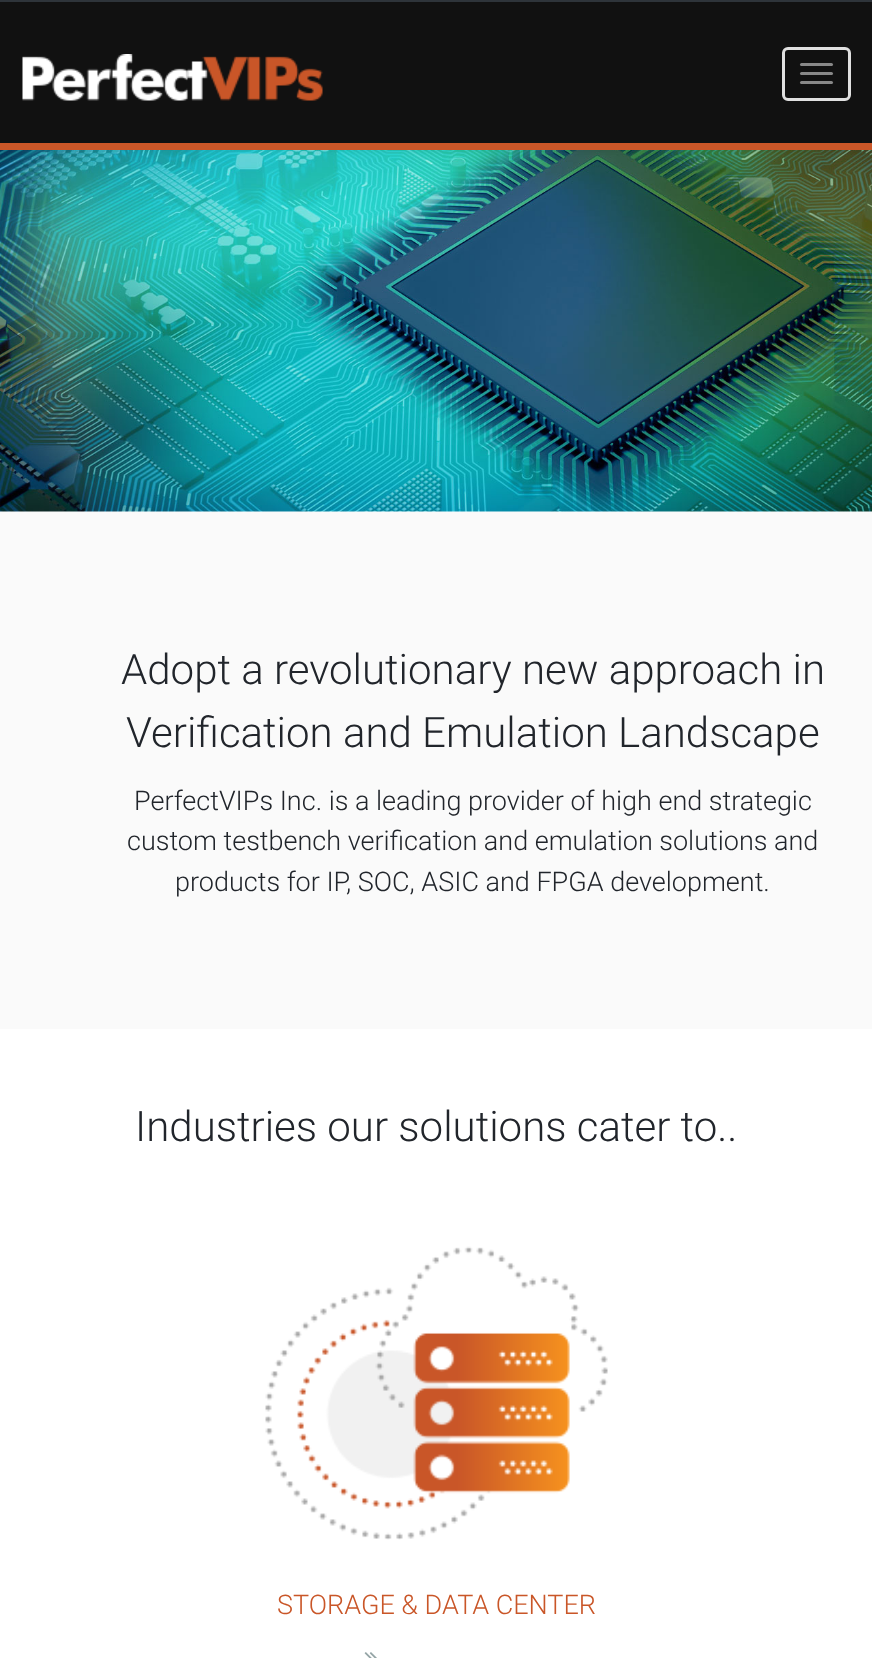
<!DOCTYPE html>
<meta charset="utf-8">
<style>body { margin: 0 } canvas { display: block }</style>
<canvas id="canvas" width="872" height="1658"></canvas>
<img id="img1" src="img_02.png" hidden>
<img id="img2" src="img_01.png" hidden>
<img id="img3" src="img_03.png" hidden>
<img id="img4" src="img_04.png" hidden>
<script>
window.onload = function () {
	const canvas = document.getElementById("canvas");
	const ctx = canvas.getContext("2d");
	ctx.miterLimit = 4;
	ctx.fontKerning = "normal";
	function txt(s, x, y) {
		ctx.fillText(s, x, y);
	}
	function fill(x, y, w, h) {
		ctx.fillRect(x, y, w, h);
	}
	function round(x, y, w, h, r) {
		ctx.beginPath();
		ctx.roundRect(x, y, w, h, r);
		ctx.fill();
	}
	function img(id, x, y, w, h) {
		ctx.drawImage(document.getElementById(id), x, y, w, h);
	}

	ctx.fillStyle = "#FFFFFF";
	fill(0, 0, 872, 1658);
	img("img1", 0, 150, 872, 362);
	ctx.fillStyle = "rgba(0, 0, 0, 0.04)";
	ctx.filter = "blur(2px)";
	ctx.beginPath();
	ctx.rect(0, 2, 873, 150);
	ctx.fill();
	ctx.filter = "none";
	ctx.fillStyle = "#111111";
	fill(0, 2, 872, 141);
	ctx.fillStyle = "#2E343A";
	fill(0, 0, 872, 2);
	ctx.fillStyle = "#CA5728";
	fill(0, 143, 872, 7);
	img("img2", 22, 54, 301, 47);
	ctx.beginPath();
	ctx.roundRect(783.5, 48.5, 66, 51, 4.5);
	ctx.strokeStyle = "#E0E0E0";
	ctx.lineWidth = 3;
	ctx.stroke();
	ctx.fillStyle = "#888888";
	round(800, 63, 33, 3, 1.5);
	round(800, 72, 33, 3, 1.5);
	round(800, 81, 33, 3, 1.5);
	ctx.fillStyle = "#FAFAFA";
	fill(0, 512, 872, 517);
	img("img3", 265, 1246, 343, 294);
	img("img4", 364, 1652, 13, 6);
	ctx.font = "300 42px Roboto";
	ctx.fillStyle = "#21252B";
	txt("Adopt a revolutionary new approach in", 121, 684);
	txt("Verification and Emulation Landscape", 126, 747);
	ctx.font = "300 27px Roboto";
	txt("PerfectVIPs Inc. is a leading provider of high end strategic", 134, 810);
	txt("custom testbench verification and emulation solutions and", 127, 850);
	txt("products for IP, SOC, ASIC and FPGA development.", 175, 891);
	ctx.font = "300 42px Roboto";
	txt("Industries our solutions cater to..", 135, 1141);
	ctx.font = "300 27px Roboto";
	ctx.fillStyle = "#C95628";
	txt("STORAGE & DATA CENTER", 277, 1614);
};
</script>
